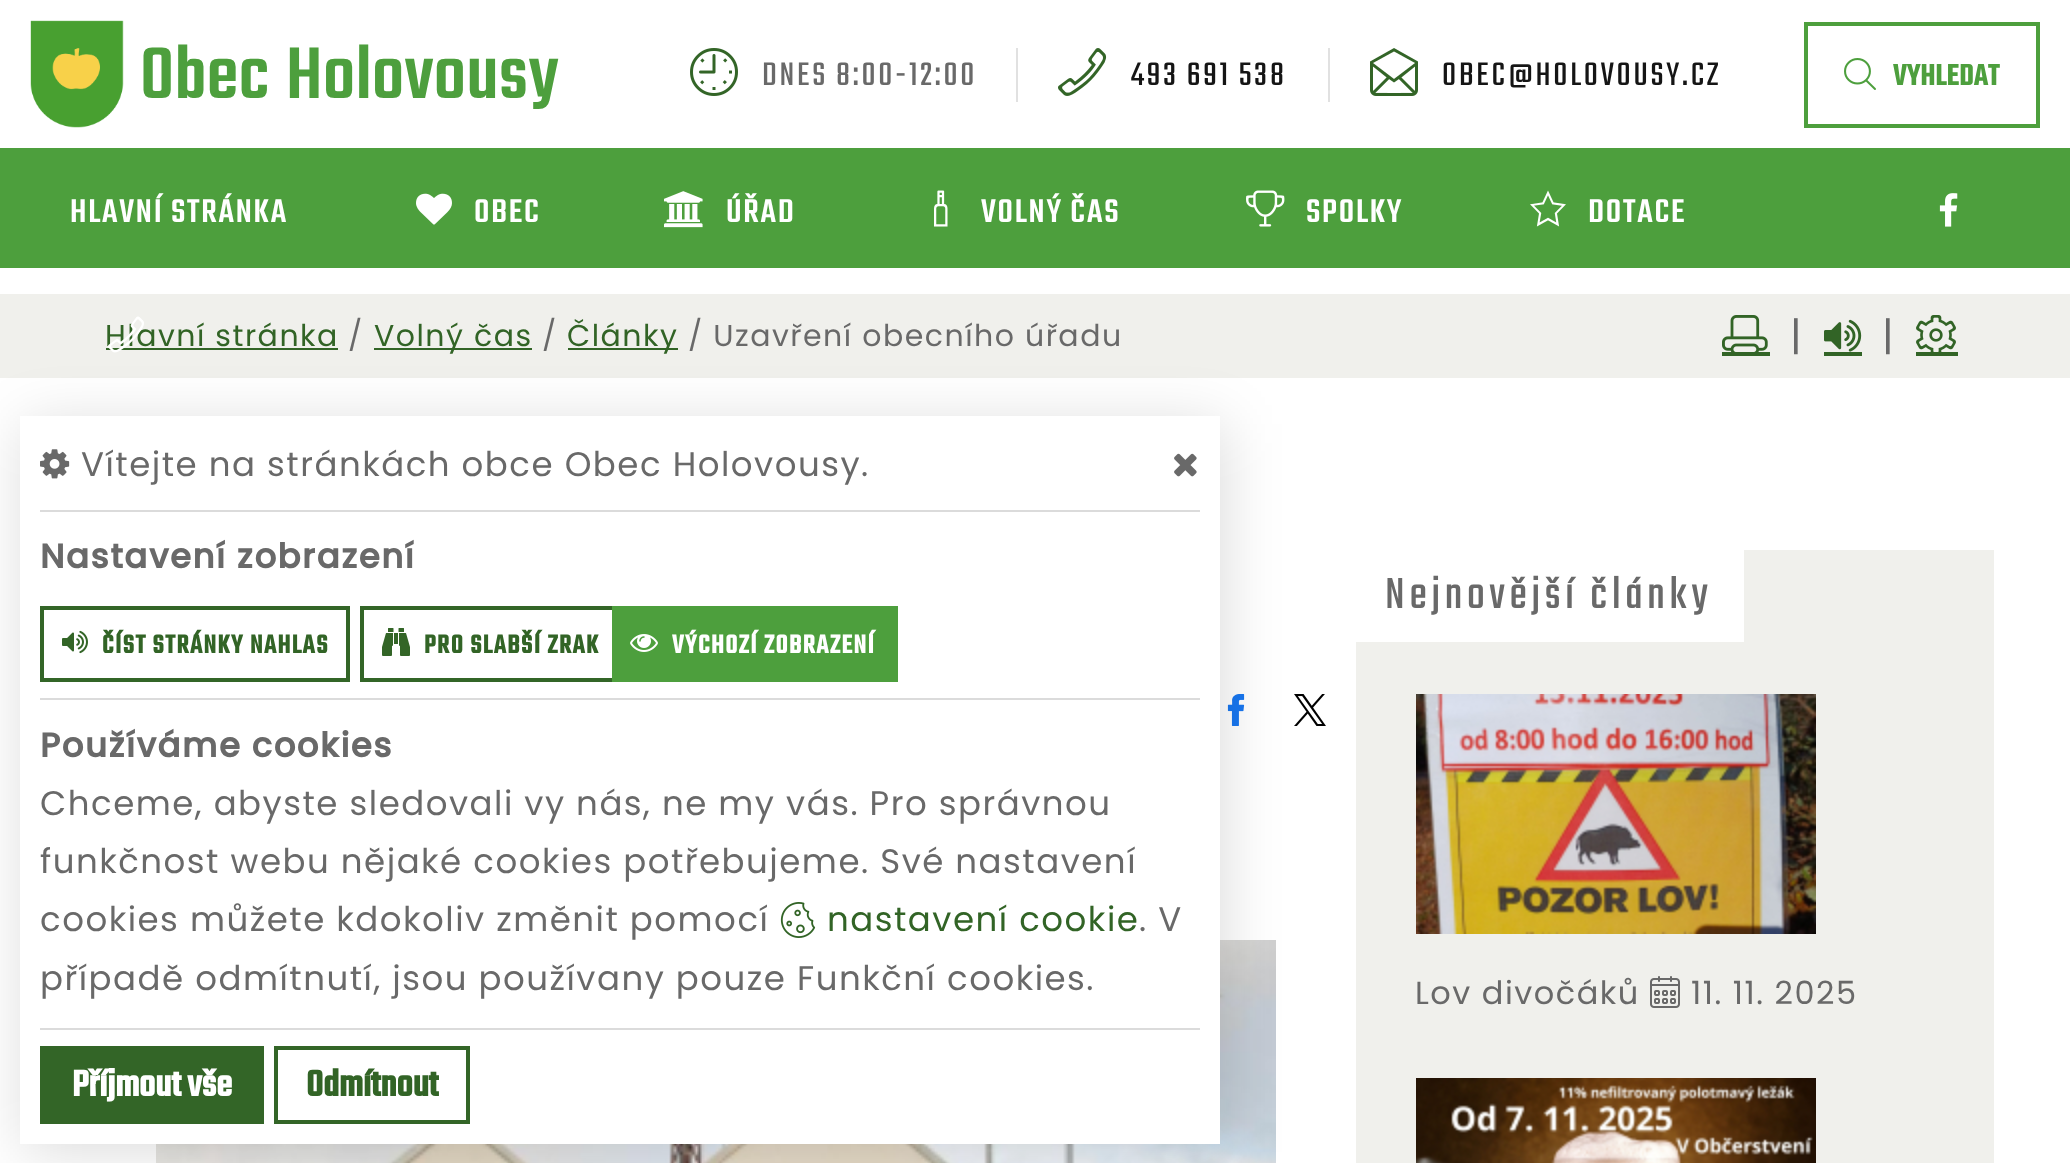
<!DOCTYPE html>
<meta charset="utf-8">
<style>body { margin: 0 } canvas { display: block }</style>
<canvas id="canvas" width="2070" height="1163"></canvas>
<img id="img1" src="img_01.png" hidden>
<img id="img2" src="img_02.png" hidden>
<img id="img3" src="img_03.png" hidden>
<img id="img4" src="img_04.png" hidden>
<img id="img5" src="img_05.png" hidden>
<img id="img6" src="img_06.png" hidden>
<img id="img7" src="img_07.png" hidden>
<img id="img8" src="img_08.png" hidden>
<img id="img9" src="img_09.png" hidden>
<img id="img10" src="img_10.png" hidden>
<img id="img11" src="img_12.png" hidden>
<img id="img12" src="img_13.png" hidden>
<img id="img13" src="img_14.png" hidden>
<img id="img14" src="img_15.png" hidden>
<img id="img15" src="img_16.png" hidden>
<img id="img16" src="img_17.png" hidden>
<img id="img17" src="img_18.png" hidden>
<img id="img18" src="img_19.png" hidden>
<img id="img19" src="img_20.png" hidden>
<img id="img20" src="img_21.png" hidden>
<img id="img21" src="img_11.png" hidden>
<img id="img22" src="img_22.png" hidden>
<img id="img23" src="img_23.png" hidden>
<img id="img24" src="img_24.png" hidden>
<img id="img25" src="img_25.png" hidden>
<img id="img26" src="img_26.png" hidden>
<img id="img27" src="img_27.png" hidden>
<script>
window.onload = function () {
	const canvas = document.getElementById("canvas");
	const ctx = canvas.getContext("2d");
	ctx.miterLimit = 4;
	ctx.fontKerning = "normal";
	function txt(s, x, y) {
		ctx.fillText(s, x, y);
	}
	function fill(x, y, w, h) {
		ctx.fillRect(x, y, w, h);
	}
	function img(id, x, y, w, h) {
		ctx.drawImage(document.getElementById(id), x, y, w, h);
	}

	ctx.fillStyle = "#FFFFFF";
	fill(0, 0, 2070, 1163);
	img("img1", 30, 20, 94, 108);
	img("img2", 690, 48, 48, 48);
	ctx.fillStyle = "#E1E1E1";
	fill(1016, 48, 2, 54);
	img("img3", 1058, 48, 49, 48);
	fill(1328, 48, 2, 54);
	img("img4", 1370, 48, 48, 48);
	ctx.strokeStyle = "#4D9F3D";
	ctx.lineWidth = 4;
	ctx.strokeRect(1806, 24, 232, 102);
	img("img5", 1844, 58, 32, 32);
	ctx.fillStyle = "#4D9F3D";
	fill(0, 148, 2070, 120);
	img("img6", 416, 193, 36, 32);
	img("img7", 664, 191, 39, 37);
	img("img8", 934, 190, 14, 37);
	img("img9", 1246, 190, 39, 37);
	img("img10", 1530, 190, 36, 37);
	img("img11", 1939, 193, 19, 34);
	ctx.fillStyle = "#F0F0EC";
	fill(0, 294, 2070, 84);
	ctx.fillStyle = "#326426";
	fill(106, 348, 232, 2);
	fill(374, 348, 158, 2);
	fill(568, 348, 110, 2);
	img("img12", 1722, 315, 46, 37);
	fill(1722, 352, 48, 4);
	img("img13", 1824, 319, 38, 33);
	fill(1824, 352, 38, 4);
	img("img14", 1916, 315, 40, 37);
	fill(1916, 352, 42, 4);
	img("img15", 1227, 694, 18, 32);
	img("img16", 1294, 694, 32, 32);
	img("img17", 156, 940, 1120, 223);
	ctx.fillStyle = "#F0F0EC";
	fill(1356, 550, 638, 613);
	ctx.fillStyle = "#FFFFFF";
	fill(1356, 550, 388, 92);
	img("img18", 1416, 694, 400, 240);
	img("img19", 1650, 976, 30, 32);
	img("img20", 1416, 1078, 400, 85);
	ctx.letterSpacing = "0.5px";
	ctx.font = "500 80px Teko";
	ctx.fillStyle = "#4D9F3D";
	txt("Obec", 140, 98);
	txt("Holovousy", 286, 98);
	ctx.letterSpacing = "2.75px";
	ctx.font = "36px Teko";
	ctx.fillStyle = "#696969";
	txt("DNES 8:00-12:00", 762, 85);
	ctx.fillStyle = "#151515";
	txt("493 691 538", 1131, 85);
	txt("OBEC@HOLOVOUSY.CZ", 1442, 85);
	ctx.letterSpacing = "0.5px";
	ctx.font = "bold 32px Teko";
	ctx.fillStyle = "#4D9F3D";
	txt("VYHLEDAT", 1893, 85);
	ctx.letterSpacing = "1.75px";
	ctx.font = "500 36px Teko";
	ctx.fillStyle = "#FFFFFF";
	txt("HLAVNÍ STRÁNKA", 70, 222);
	txt("OBEC", 474, 222);
	txt("ÚŘAD", 726, 222);
	txt("VOLNÝ ČAS", 981, 222);
	txt("SPOLKY", 1306, 222);
	txt("DOTACE", 1588, 222);
	ctx.letterSpacing = "1.5px";
	ctx.font = "30px Poppins";
	ctx.fillStyle = "#326426";
	txt("Hlavní stránka", 105, 346);
	img("img21", 108, 316, 36, 37);
	ctx.fillStyle = "#696969";
	txt("/", 348, 346);
	ctx.fillStyle = "#326426";
	txt("Volný čas", 374, 346);
	ctx.fillStyle = "#696969";
	txt("/", 542, 346);
	ctx.fillStyle = "#326426";
	txt("Články", 567, 346);
	ctx.fillStyle = "#696969";
	txt("/ Uzavření obecního úřadu", 688, 346);
	ctx.font = "40px Poppins";
	txt("|", 1790, 350);
	txt("|", 1882, 350);
	ctx.letterSpacing = "4.75px";
	ctx.font = "48px Teko";
	txt("Nejnovější články", 1385, 608);
	ctx.letterSpacing = "1.5px";
	ctx.font = "32px Poppins";
	txt("Lov divočáků", 1415, 1004);
	txt("11. 11. 2025", 1691, 1004);
	ctx.fillStyle = "rgba(0, 0, 0, 0.14)";
	ctx.filter = "blur(29px)";
	ctx.beginPath();
	ctx.rect(24, 424, 1200, 728);
	ctx.fill();
	ctx.filter = "none";
	ctx.fillStyle = "#FFFFFF";
	fill(20, 416, 1200, 728);
	img("img22", 40, 449, 30, 30);
	ctx.font = "34px Poppins";
	ctx.fillStyle = "#696969";
	txt("Vítejte na stránkách obce Obec Holovousy.", 81, 476);
	img("img23", 1174, 453, 23, 24);
	ctx.fillStyle = "#DBDBDB";
	fill(40, 510, 1160, 2);
	ctx.font = "bold 34px Poppins";
	ctx.fillStyle = "#696969";
	txt("Nastavení zobrazení", 40, 568);
	ctx.strokeStyle = "#336527";
	ctx.strokeRect(42, 608, 306, 72);
	img("img24", 62, 630, 26, 24);
	ctx.font = "bold 28px Teko";
	ctx.fillStyle = "#326426";
	txt("ČÍST STRÁNKY NAHLAS", 102, 653);
	ctx.fillStyle = "#336527";
	fill(360, 606, 258, 4);
	fill(360, 678, 258, 4);
	fill(360, 606, 4, 76);
	img("img25", 382, 628, 28, 28);
	ctx.fillStyle = "#326426";
	txt("PRO SLABŠÍ ZRAK", 424, 653);
	ctx.fillStyle = "#4D9F3D";
	fill(612, 606, 286, 76);
	img("img26", 630, 634, 28, 18);
	ctx.fillStyle = "#FFFFFF";
	txt("VÝCHOZÍ ZOBRAZENÍ", 672, 653);
	ctx.fillStyle = "#DBDBDB";
	fill(40, 698, 1160, 2);
	ctx.font = "bold 34px Poppins";
	ctx.fillStyle = "#696969";
	txt("Používáme cookies", 40, 757);
	ctx.font = "34px Poppins";
	txt("Chceme, abyste sledovali vy nás, ne my vás. Pro správnou", 40, 815);
	txt("funkčnost webu nějaké cookies potřebujeme. Své nastavení", 40, 873);
	txt("cookies můžete kdokoliv změnit pomocí", 40, 931);
	img("img27", 780, 902, 36, 36);
	ctx.fillStyle = "#326426";
	txt("nastavení cookie", 827, 931);
	ctx.fillStyle = "#696969";
	txt(". V", 1139, 931);
	txt("případě odmítnutí, jsou používany pouze Funkční cookies.", 40, 990);
	ctx.fillStyle = "#DBDBDB";
	fill(40, 1028, 1160, 2);
	ctx.fillStyle = "#336527";
	fill(40, 1046, 224, 78);
	ctx.letterSpacing = "0px";
	ctx.font = "bold 40px Teko";
	ctx.fillStyle = "#FFFFFF";
	txt("Příjmout vše", 72, 1096);
	ctx.strokeRect(276, 1048, 192, 74);
	ctx.fillStyle = "#326426";
	txt("Odmítnout", 306, 1096);
};
</script>
